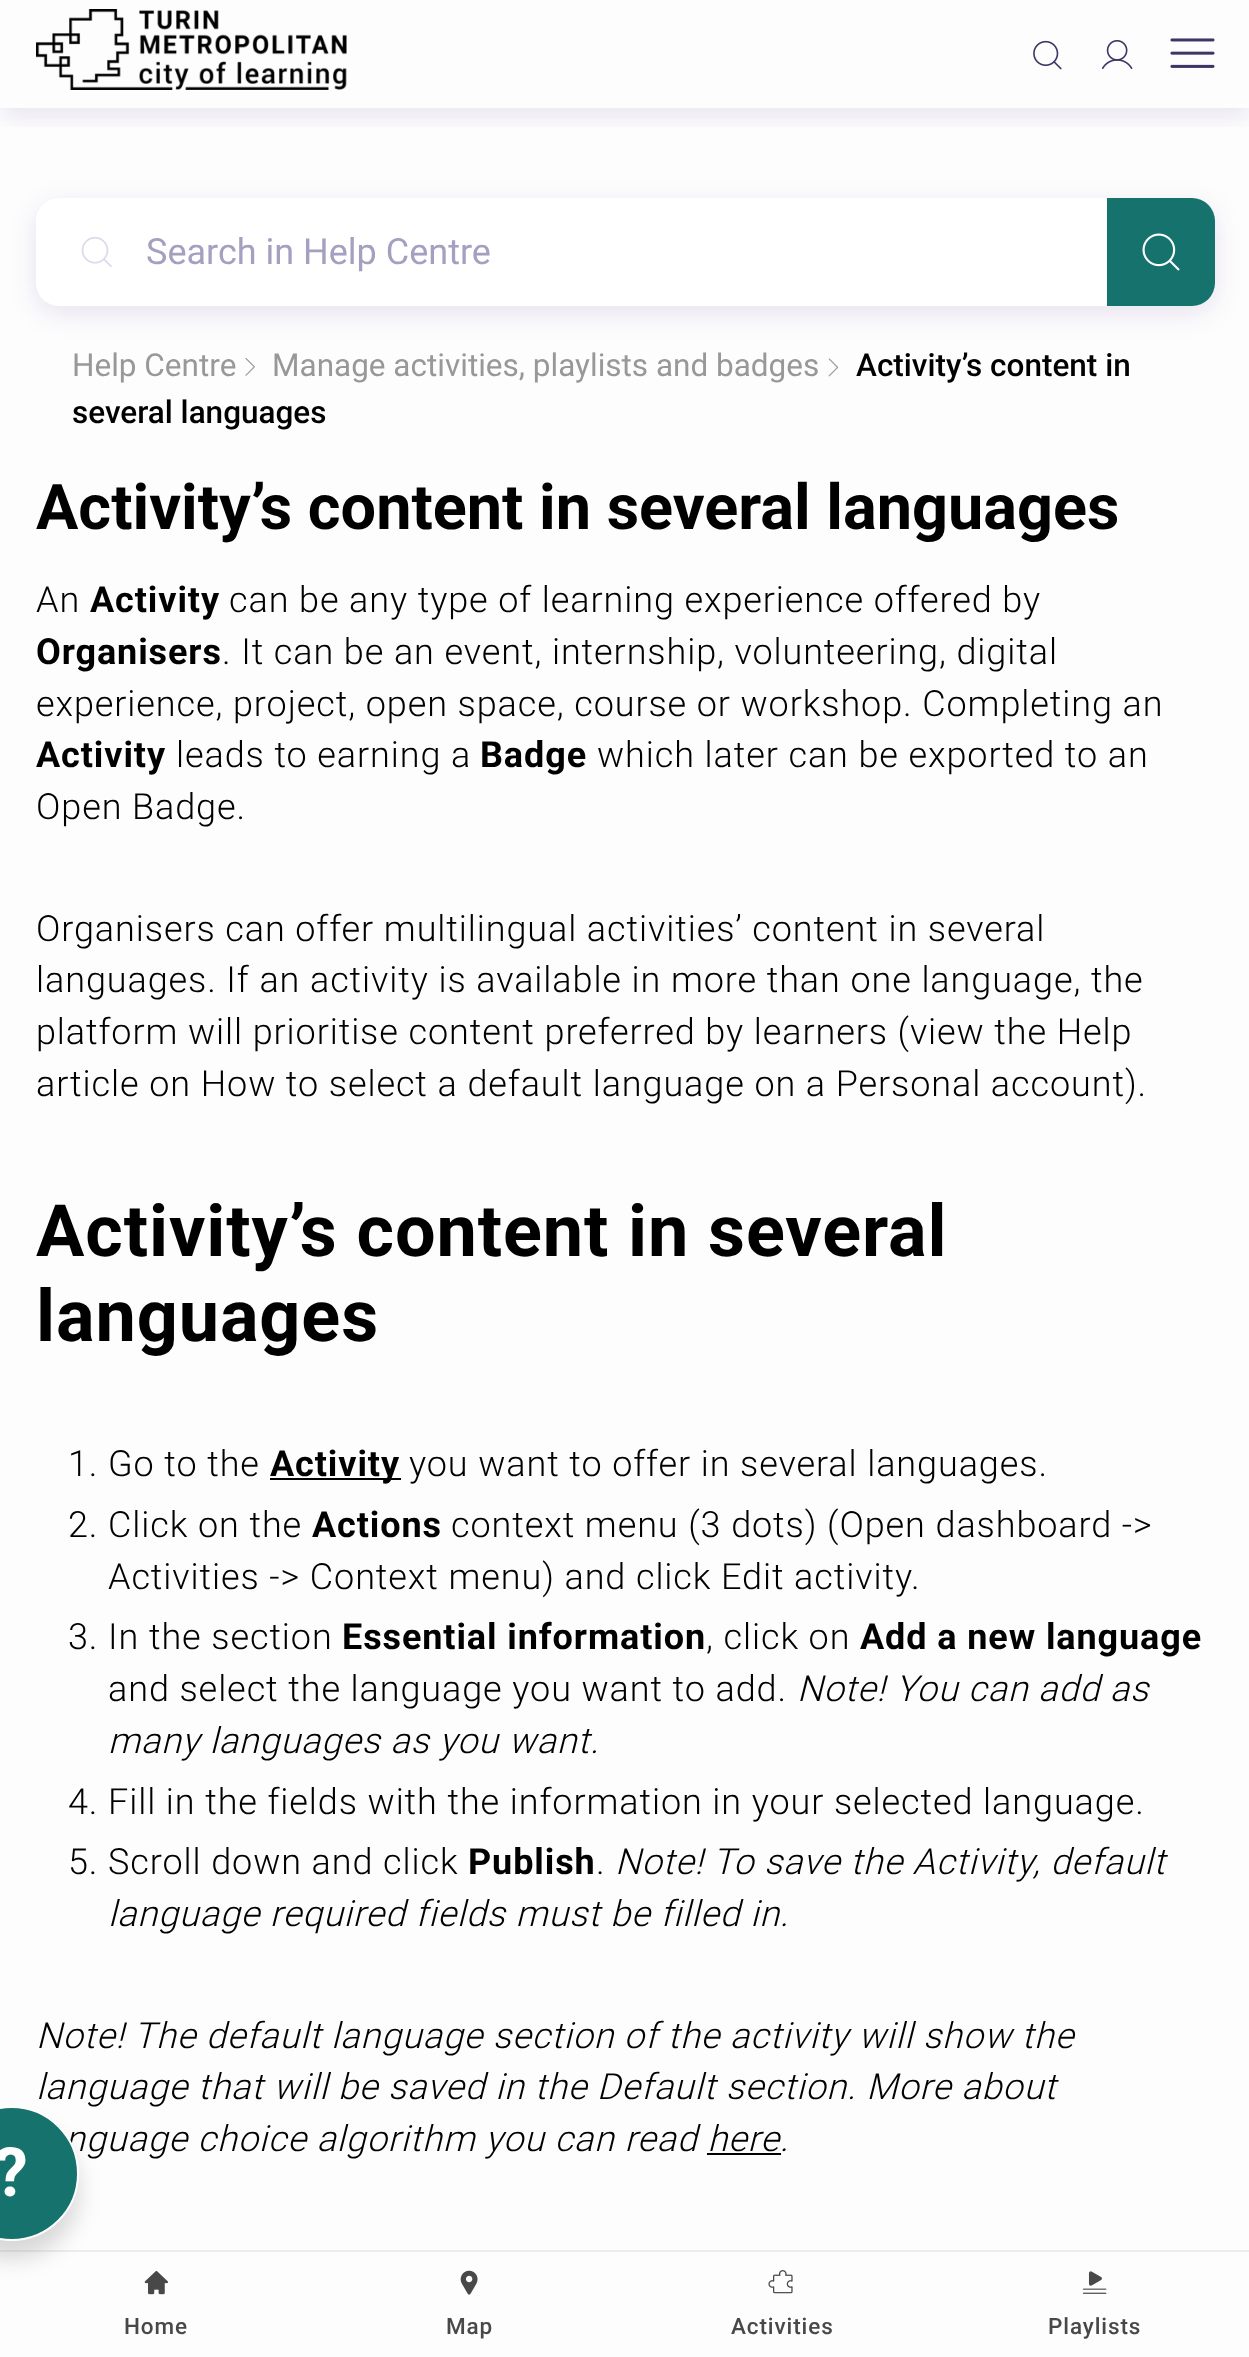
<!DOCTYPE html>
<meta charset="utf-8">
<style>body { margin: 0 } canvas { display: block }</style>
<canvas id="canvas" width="1249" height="2357"></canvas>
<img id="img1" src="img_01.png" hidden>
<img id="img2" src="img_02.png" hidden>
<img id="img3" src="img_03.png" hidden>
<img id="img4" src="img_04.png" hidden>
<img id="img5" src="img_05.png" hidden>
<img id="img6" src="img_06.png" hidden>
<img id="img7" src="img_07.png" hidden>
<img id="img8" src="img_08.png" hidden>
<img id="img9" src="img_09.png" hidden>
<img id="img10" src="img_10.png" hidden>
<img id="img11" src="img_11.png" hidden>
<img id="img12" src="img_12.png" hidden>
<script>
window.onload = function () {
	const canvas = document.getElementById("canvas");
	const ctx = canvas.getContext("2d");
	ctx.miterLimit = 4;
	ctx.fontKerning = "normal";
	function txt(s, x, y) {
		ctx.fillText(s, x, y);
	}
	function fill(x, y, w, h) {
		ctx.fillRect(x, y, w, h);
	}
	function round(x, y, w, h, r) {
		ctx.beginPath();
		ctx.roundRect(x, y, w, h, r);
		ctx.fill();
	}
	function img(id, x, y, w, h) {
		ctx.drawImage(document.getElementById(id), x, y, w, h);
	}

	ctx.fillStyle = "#FDFDFD";
	fill(0, 0, 1249, 2357);
	ctx.save();
	ctx.beginPath();
	ctx.rect(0, 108, 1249, 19);
	ctx.clip();
	ctx.fillStyle = "rgba(48, 6, 114, 0.11)";
	ctx.filter = "blur(13.5px)";
	ctx.beginPath();
	ctx.rect(0, 7, 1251, 108);
	ctx.fill();
	ctx.filter = "none";
	ctx.restore();
	img("img1", 36, 9, 311, 81);
	img("img2", 1033, 40, 29, 30);
	img("img3", 1101, 40, 32, 29);
	img("img4", 1170, 38, 45, 30);
	ctx.fillStyle = "rgba(48, 6, 114, 0.11)";
	ctx.filter = "blur(13.5px)";
	ctx.beginPath();
	ctx.roundRect(36, 205, 1179, 108, 23);
	ctx.fill();
	ctx.filter = "none";
	ctx.fillStyle = "#FFFFFF";
	round(36, 198, 1179, 108, 23);
	img("img5", 81, 237, 31, 30);
	ctx.fillStyle = "#16726D";
	ctx.beginPath();
	ctx.roundRect(1107, 198, 108, 108, [0, 23, 23, 0]);
	ctx.fill();
	img("img6", 1142, 233, 38, 38);
	img("img7", 245, 358, 10, 18);
	img("img8", 828, 358, 11, 19);
	ctx.fillStyle = "#000000";
	fill(270, 1478, 131, 2);
	fill(707, 2153, 74, 2);
	ctx.fillStyle = "#EDEDED";
	fill(0, 2250, 1249, 2);
	ctx.fillStyle = "rgba(0, 0, 0, 0.15)";
	ctx.filter = "blur(11px)";
	ctx.beginPath();
	ctx.roundRect(-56, 2124, 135, 135, 67.5);
	ctx.fill();
	ctx.filter = "none";
	img("img9", 144, 2270, 25, 25);
	img("img10", 460, 2270, 18, 25);
	img("img11", 768, 2270, 25, 24);
	img("img12", 1082, 2271, 25, 23);
	ctx.font = "36px Roboto";
	ctx.fillStyle = "#A59FC0";
	txt("Search in Help Centre", 146, 264);
	ctx.font = "31.5px Roboto";
	ctx.fillStyle = "#989898";
	txt("Help Centre", 72, 376);
	txt("Manage activities, playlists and badges", 272, 376);
	ctx.font = "500 31.5px Roboto";
	ctx.fillStyle = "#000000";
	txt("Activity’s content in", 856, 376);
	txt("several languages", 72, 423);
	ctx.font = "bold 63px Roboto";
	txt("Activity’s content in several languages", 36, 529);
	ctx.letterSpacing = "0.9px";
	ctx.font = "300 36px Roboto";
	txt("An", 36, 612);
	ctx.font = "bold 36px Roboto";
	txt("Activity", 90, 612);
	ctx.font = "300 36px Roboto";
	txt("can be any type of learning experience offered by", 229, 612);
	ctx.font = "bold 36px Roboto";
	txt("Organisers", 36, 664);
	ctx.font = "300 36px Roboto";
	txt(". It can be an event, internship, volunteering, digital", 222, 664);
	txt("experience, project, open space, course or workshop. Completing an", 36, 716);
	ctx.font = "bold 36px Roboto";
	txt("Activity", 36, 767);
	ctx.font = "300 36px Roboto";
	txt("leads to earning a", 176, 767);
	ctx.font = "bold 36px Roboto";
	txt("Badge", 480, 767);
	ctx.font = "300 36px Roboto";
	txt("which later can be exported to an", 597, 767);
	txt("Open Badge.", 36, 819);
	txt("Organisers can offer multilingual activities’ content in several", 36, 941);
	txt("languages. If an activity is available in more than one language, the", 36, 992);
	txt("platform will prioritise content preferred by learners (view the Help", 36, 1044);
	txt("article on How to select a default language on a Personal account).", 36, 1096);
	ctx.font = "bold 72px Roboto";
	txt("Activity’s content in several", 36, 1256);
	txt("languages", 36, 1341);
	ctx.font = "300 36px Roboto";
	txt("1. Go to the", 68, 1476);
	ctx.font = "bold 36px Roboto";
	txt("Activity", 270, 1476);
	ctx.font = "300 36px Roboto";
	txt("you want to offer in several languages.", 409, 1476);
	txt("2. Click on the", 68, 1537);
	ctx.font = "bold 36px Roboto";
	txt("Actions", 312, 1537);
	ctx.font = "300 36px Roboto";
	txt("context menu (3 dots) (Open dashboard ->", 451, 1537);
	txt("Activities -> Context menu) and click Edit activity.", 108, 1589);
	txt("3. In the section", 68, 1649);
	ctx.font = "bold 36px Roboto";
	txt("Essential information", 342, 1649);
	ctx.font = "300 36px Roboto";
	txt(", click on", 706, 1649);
	ctx.font = "bold 36px Roboto";
	txt("Add a new language", 860, 1649);
	ctx.font = "300 36px Roboto";
	txt("and select the language you want to add.", 108, 1701);
	ctx.font = "italic 300 36px Roboto";
	txt("Note! You can add as", 797, 1701);
	txt("many languages as you want.", 108, 1753);
	ctx.font = "300 36px Roboto";
	txt("4. Fill in the fields with the information in your selected language.", 68, 1814);
	txt("5. Scroll down and click", 68, 1874);
	ctx.font = "bold 36px Roboto";
	txt("Publish", 468, 1874);
	ctx.font = "300 36px Roboto";
	txt(".", 596, 1874);
	ctx.font = "italic 300 36px Roboto";
	txt("Note! To save the Activity, default", 615, 1874);
	txt("language required fields must be filled in.", 108, 1926);
	txt("Note! The default language section of the activity will show the", 36, 2048);
	txt("language that will be saved in the Default section. More about", 36, 2099);
	txt("nguage choice algorithm you can read here.", 65, 2151);
	ctx.fillStyle = "#16726D";
	ctx.beginPath();
	ctx.arc(11.5, 2173.5, 66.5, 0, Math.PI * 2);
	ctx.fill();
	ctx.strokeStyle = "#FFFFFF";
	ctx.lineWidth = 2;
	ctx.stroke();
	ctx.letterSpacing = "0px";
	ctx.font = "bold 68px Roboto";
	ctx.fillStyle = "#FFFFFF";
	txt("?", -6, 2196);
	ctx.letterSpacing = "0.9px";
	ctx.font = "500 22.5px Roboto";
	ctx.fillStyle = "#484848";
	txt("Home", 124, 2334);
	txt("Map", 446, 2334);
	txt("Activities", 731, 2334);
	txt("Playlists", 1048, 2334);
};
</script>
